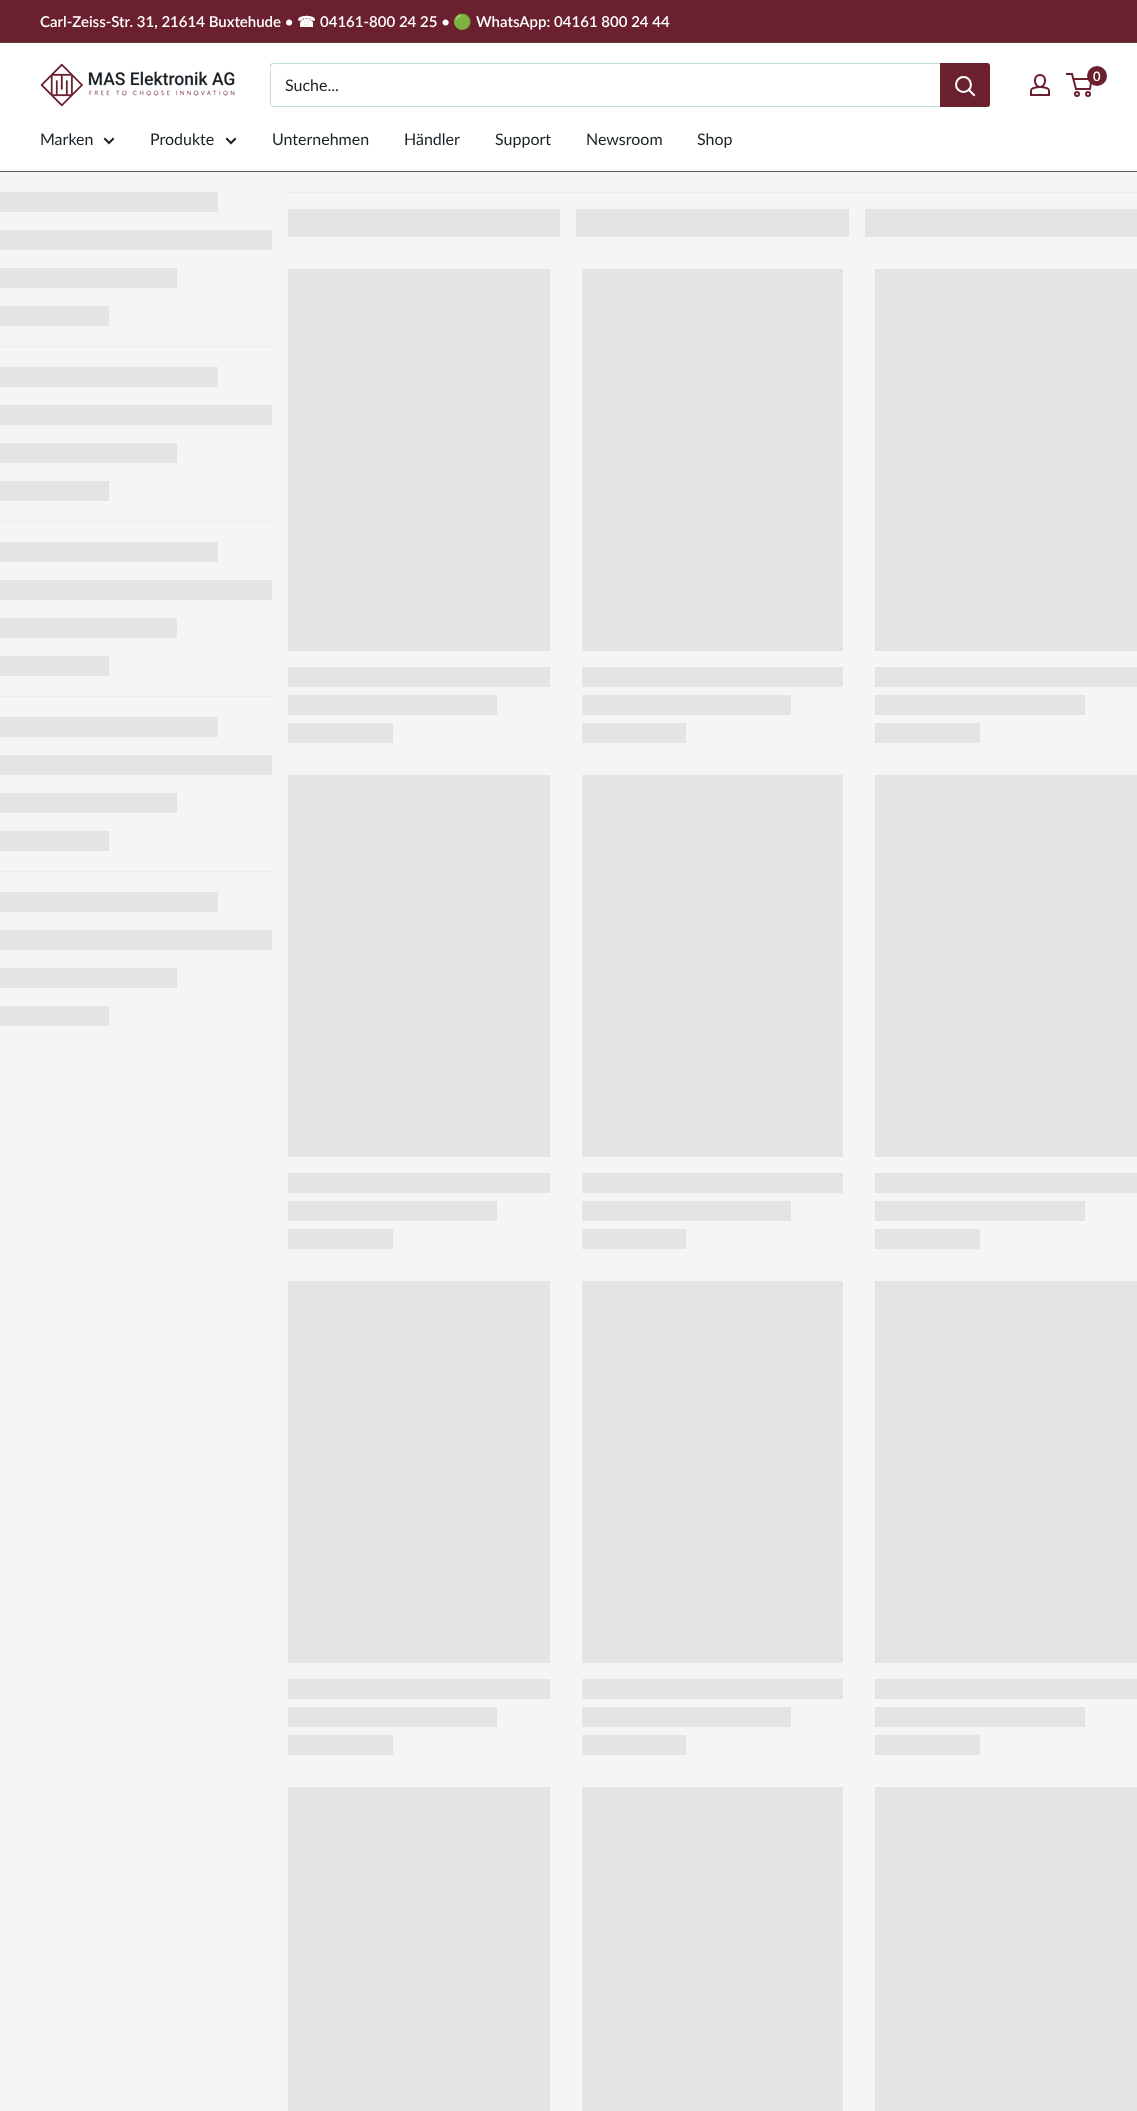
<!DOCTYPE html>
<meta charset="utf-8">
<style>body { margin: 0 } canvas { display: block }</style>
<canvas id="canvas" width="1137" height="2111"></canvas>
<img id="img1" src="img_01.png" hidden>
<img id="img2" src="img_02.png" hidden>
<script>
window.onload = function () {
	const canvas = document.getElementById("canvas");
	const ctx = canvas.getContext("2d");
	ctx.miterLimit = 4;
	ctx.fontKerning = "normal";
	function txt(s, x, y) {
		ctx.fillText(s, x, y);
	}
	function fill(x, y, w, h) {
		ctx.fillRect(x, y, w, h);
	}
	function img(id, x, y, w, h) {
		ctx.drawImage(document.getElementById(id), x, y, w, h);
	}

	ctx.fillStyle = "#F3F5F6";
	fill(0, 0, 1137, 2111);
	ctx.fillStyle = "#6A202E";
	fill(0, 0, 1137, 42);
	ctx.fillStyle = "#584045";
	fill(0, 42, 1137, 1);
	ctx.fillStyle = "#FFFFFF";
	fill(0, 43, 1137, 128);
	img("img1", 40, 63, 195, 44);
	img("img2", 1030, 74, 20, 22);
	ctx.beginPath();
	ctx.arc(1077, 94, 2, 0, Math.PI * 2);
	ctx.strokeStyle = "#6A202E";
	ctx.lineWidth = 2;
	ctx.stroke();
	ctx.beginPath();
	ctx.arc(1088, 94, 2, 0, Math.PI * 2);
	ctx.stroke();
	ctx.beginPath();
	ctx.moveTo(1073.5, 79);
	ctx.lineTo(1091.5, 79);
	ctx.lineTo(1090, 89);
	ctx.lineTo(1076, 89);
	ctx.lineTo(1072, 74);
	ctx.lineTo(1066, 74);
	ctx.stroke();
	ctx.fillStyle = "#6A202E";
	ctx.beginPath();
	ctx.arc(1097, 76, 10, 0, Math.PI * 2);
	ctx.fill();
	ctx.fillStyle = "#C0DDD7";
	ctx.beginPath();
	ctx.moveTo(271, 106);
	ctx.bezierCurveTo(271, 107, 272, 107, 273, 107);
	ctx.lineTo(987, 107);
	ctx.bezierCurveTo(989, 107, 990, 106, 990, 104);
	ctx.lineTo(990, 66);
	ctx.bezierCurveTo(990, 65, 990, 64, 989, 64);
	ctx.lineTo(989, 97);
	ctx.bezierCurveTo(989, 99, 991, 106, 986, 106);
	ctx.closePath();
	ctx.fill();
	ctx.beginPath();
	ctx.moveTo(274, 64);
	ctx.lineTo(989, 64);
	ctx.bezierCurveTo(989, 63, 988, 63, 987, 63);
	ctx.lineTo(273, 63);
	ctx.bezierCurveTo(271, 63, 270, 64, 270, 66);
	ctx.lineTo(270, 104);
	ctx.bezierCurveTo(270, 105, 270, 106, 271, 106);
	ctx.lineTo(271, 73);
	ctx.bezierCurveTo(271, 71, 269, 64, 274, 64);
	ctx.closePath();
	ctx.fill();
	ctx.fillStyle = "#6A202E";
	ctx.beginPath();
	ctx.roundRect(940, 63, 50, 44, [0, 3, 3, 0]);
	ctx.fill();
	ctx.beginPath();
	ctx.moveTo(974, 95);
	ctx.lineTo(969, 90);
	ctx.strokeStyle = "#FFFFFF";
	ctx.lineCap = "square";
	ctx.stroke();
	ctx.beginPath();
	ctx.arc(963.5, 84.5, 7.5, 0, Math.PI * 2);
	ctx.stroke();
	ctx.fillStyle = "#675D66";
	fill(0, 171, 1137, 1);
	ctx.beginPath();
	ctx.moveTo(113, 139);
	ctx.lineTo(109, 143);
	ctx.lineTo(105, 139);
	ctx.strokeStyle = "#1A2226";
	ctx.stroke();
	ctx.beginPath();
	ctx.moveTo(235, 139);
	ctx.lineTo(231, 143);
	ctx.lineTo(227, 139);
	ctx.stroke();
	ctx.fillStyle = "#EBEBEB";
	fill(0, 346, 272, 1);
	ctx.fillStyle = "#E2E4E5";
	fill(0, 192, 218, 20);
	fill(0, 230, 272, 20);
	fill(0, 268, 177, 20);
	fill(0, 306, 109, 20);
	ctx.fillStyle = "#EBEBEB";
	fill(0, 521, 272, 1);
	ctx.fillStyle = "#E2E4E5";
	fill(0, 367, 218, 20);
	fill(0, 405, 272, 20);
	fill(0, 443, 177, 20);
	fill(0, 481, 109, 20);
	ctx.fillStyle = "#EBEBEB";
	fill(0, 696, 272, 1);
	ctx.fillStyle = "#E2E4E5";
	fill(0, 542, 218, 20);
	fill(0, 580, 272, 20);
	fill(0, 618, 177, 20);
	fill(0, 656, 109, 20);
	ctx.fillStyle = "#EBEBEB";
	fill(0, 871, 272, 1);
	ctx.fillStyle = "#E2E4E5";
	fill(0, 717, 218, 20);
	fill(0, 755, 272, 20);
	fill(0, 793, 177, 20);
	fill(0, 831, 109, 20);
	fill(0, 892, 218, 20);
	fill(0, 930, 272, 20);
	fill(0, 968, 177, 20);
	fill(0, 1006, 109, 20);
	ctx.fillStyle = "#EBEBEB";
	fill(288, 192, 849, 1);
	ctx.fillStyle = "#E2E4E5";
	fill(288, 209, 272, 28);
	fill(576, 209, 273, 28);
	fill(865, 209, 272, 28);
	fill(288, 269, 262, 382);
	fill(288, 667, 262, 20);
	fill(288, 695, 209, 20);
	fill(288, 723, 105, 20);
	fill(582, 269, 261, 382);
	fill(582, 667, 261, 20);
	fill(582, 695, 209, 20);
	fill(582, 723, 104, 20);
	fill(875, 269, 262, 382);
	fill(875, 667, 262, 20);
	fill(875, 695, 210, 20);
	fill(875, 723, 105, 20);
	fill(288, 775, 262, 382);
	fill(288, 1173, 262, 20);
	fill(288, 1201, 209, 20);
	fill(288, 1229, 105, 20);
	fill(582, 775, 261, 382);
	fill(582, 1173, 261, 20);
	fill(582, 1201, 209, 20);
	fill(582, 1229, 104, 20);
	fill(875, 775, 262, 382);
	fill(875, 1173, 262, 20);
	fill(875, 1201, 210, 20);
	fill(875, 1229, 105, 20);
	fill(288, 1281, 262, 382);
	fill(288, 1679, 262, 20);
	fill(288, 1707, 209, 20);
	fill(288, 1735, 105, 20);
	fill(582, 1281, 261, 382);
	fill(582, 1679, 261, 20);
	fill(582, 1707, 209, 20);
	fill(582, 1735, 104, 20);
	fill(875, 1281, 262, 382);
	fill(875, 1679, 262, 20);
	fill(875, 1707, 210, 20);
	fill(875, 1735, 105, 20);
	fill(288, 1787, 262, 324);
	fill(582, 1787, 261, 324);
	fill(875, 1787, 262, 324);
	ctx.font = "600 15px Lato";
	ctx.fillStyle = "#FFFFFF";
	txt("Carl-Zeiss-Str. 31, 21614 Buxtehude •", 40, 27);
	ctx.font = "bold 15px DejaVu Sans";
	txt("☎", 297, 27);
	ctx.font = "600 15px Lato";
	txt("04161-800 24 25 •", 320, 27);
	ctx.font = "bold 15px Noto Color Emoji";
	txt("🟢", 453, 27);
	ctx.font = "600 15px Lato";
	txt("WhatsApp: 04161 800 24 44", 476, 27);
	ctx.font = "600 13px Lato";
	txt("0", 1093, 81);
	ctx.font = "16px Lato";
	ctx.fillStyle = "#1A2226";
	txt("Suche...", 285, 91);
	txt("Marken", 40, 145);
	txt("Produkte", 150, 145);
	txt("Unternehmen", 272, 145);
	txt("Händler", 404, 145);
	txt("Support", 495, 145);
	txt("Newsroom", 586, 145);
	txt("Shop", 697, 145);
};
</script>
